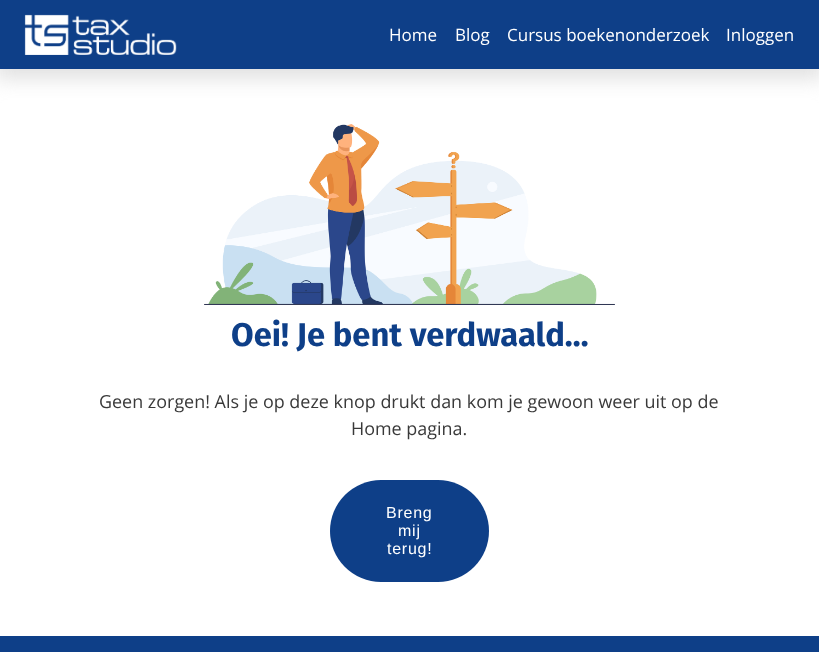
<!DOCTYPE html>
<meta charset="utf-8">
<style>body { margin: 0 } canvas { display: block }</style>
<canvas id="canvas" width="819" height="652"></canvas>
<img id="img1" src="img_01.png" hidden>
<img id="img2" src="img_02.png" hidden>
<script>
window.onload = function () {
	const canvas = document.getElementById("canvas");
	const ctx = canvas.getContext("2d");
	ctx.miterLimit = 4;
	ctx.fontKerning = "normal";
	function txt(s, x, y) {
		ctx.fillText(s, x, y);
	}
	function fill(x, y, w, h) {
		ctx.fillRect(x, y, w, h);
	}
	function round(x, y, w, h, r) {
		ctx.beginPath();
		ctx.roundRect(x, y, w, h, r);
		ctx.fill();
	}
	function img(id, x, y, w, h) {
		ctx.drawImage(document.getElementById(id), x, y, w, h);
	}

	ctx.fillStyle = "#0E3F88";
	fill(0, 0, 819, 652);
	ctx.fillStyle = "#FFFFFF";
	fill(0, 69, 819, 567);
	ctx.fillStyle = "#E1E1E1";
	ctx.filter = "blur(10px)";
	ctx.beginPath();
	ctx.rect(-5, 0, 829, 79);
	ctx.fill();
	ctx.filter = "none";
	ctx.fillStyle = "#0E3F88";
	fill(0, 0, 819, 69);
	img("img1", 24, 14, 153, 41);
	img("img2", 204, 124, 411, 181);
	round(330, 480, 159, 102, 51);
	ctx.font = "17px Open Sans";
	ctx.fillStyle = "#FFFFFF";
	txt("Home", 389, 41);
	txt("Blog", 455, 41);
	txt("Cursus boekenonderzoek", 507, 41);
	txt("Inloggen", 726, 41);
	ctx.font = "bold 32.75px Fira Sans";
	ctx.fillStyle = "#0E3F88";
	txt("Oei! Je bent verdwaald…", 231, 346);
	ctx.font = "17.95px Open Sans";
	ctx.fillStyle = "#393939";
	txt("Geen zorgen! Als je op deze knop drukt dan kom je gewoon weer uit op de", 99, 408);
	txt("Home pagina.", 351, 435);
	ctx.letterSpacing = "0.75px";
	ctx.font = "16px Liberation Sans";
	ctx.fillStyle = "#FFFFFF";
	txt("Breng", 386, 518);
	txt("mij", 398, 536);
	txt("terug!", 387, 554);
};
</script>
